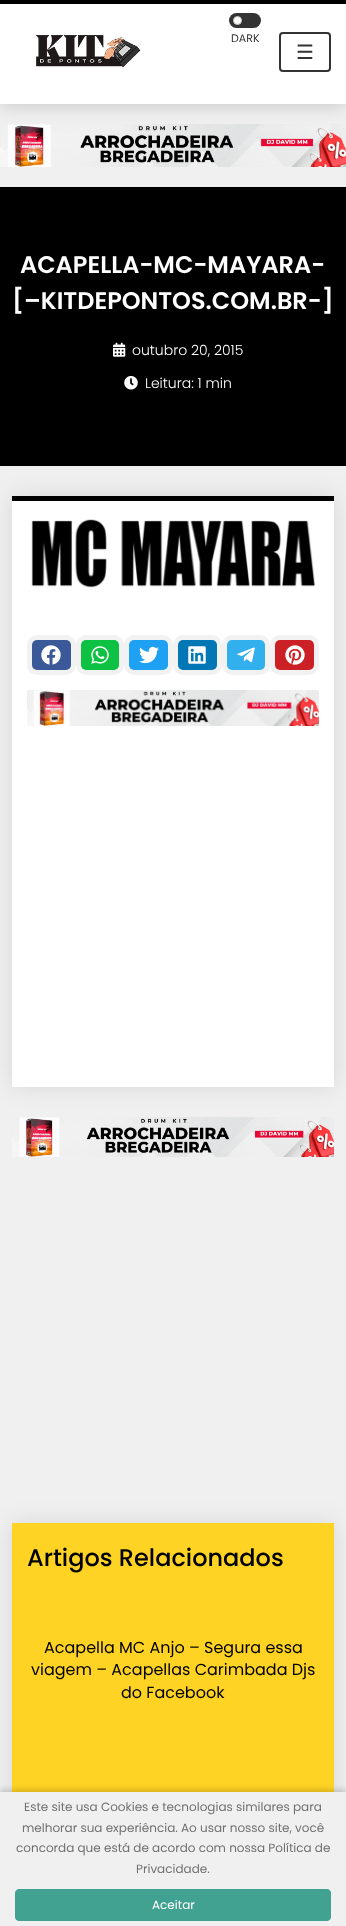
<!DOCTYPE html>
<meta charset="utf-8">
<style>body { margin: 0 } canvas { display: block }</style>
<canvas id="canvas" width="346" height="1926"></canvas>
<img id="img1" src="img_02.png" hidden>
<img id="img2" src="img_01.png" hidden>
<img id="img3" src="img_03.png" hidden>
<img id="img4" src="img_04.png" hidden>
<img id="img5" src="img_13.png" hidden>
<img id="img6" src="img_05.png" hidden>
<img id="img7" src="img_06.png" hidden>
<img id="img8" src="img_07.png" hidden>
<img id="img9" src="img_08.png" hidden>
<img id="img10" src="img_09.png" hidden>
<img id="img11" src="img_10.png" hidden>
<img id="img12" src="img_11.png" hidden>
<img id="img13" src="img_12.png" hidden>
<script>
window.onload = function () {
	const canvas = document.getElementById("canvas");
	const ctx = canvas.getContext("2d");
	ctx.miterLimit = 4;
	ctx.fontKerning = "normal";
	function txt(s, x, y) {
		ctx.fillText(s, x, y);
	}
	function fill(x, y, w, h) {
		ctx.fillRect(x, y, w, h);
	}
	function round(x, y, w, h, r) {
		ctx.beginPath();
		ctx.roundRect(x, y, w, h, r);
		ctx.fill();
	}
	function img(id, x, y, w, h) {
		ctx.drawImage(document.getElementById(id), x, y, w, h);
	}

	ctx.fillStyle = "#F0F0F0";
	fill(0, 0, 346, 1926);
	img("img1", 0, 124, 346, 43);
	ctx.fillStyle = "rgba(0, 0, 0, 0.2)";
	ctx.filter = "blur(10px)";
	ctx.beginPath();
	ctx.rect(0, 0, 346, 104);
	ctx.fill();
	ctx.filter = "none";
	ctx.fillStyle = "#FFFFFF";
	fill(0, 4, 346, 100);
	ctx.fillStyle = "#000000";
	fill(0, 0, 346, 4);
	ctx.fillStyle = "#333333";
	round(229, 13, 32, 15, 7.5);
	ctx.fillStyle = "#FFFFFF";
	ctx.beginPath();
	ctx.arc(237.5, 20.5, 4, 0, Math.PI * 2);
	ctx.fill();
	ctx.strokeStyle = "#C8C3BC";
	ctx.stroke();
	img("img2", 36, 35, 105, 33);
	ctx.beginPath();
	ctx.roundRect(280, 33, 50, 38, 3);
	ctx.strokeStyle = "#333333";
	ctx.lineWidth = 2;
	ctx.stroke();
	ctx.fillStyle = "#000000";
	fill(0, 187, 346, 279);
	img("img3", 113, 342, 13, 15);
	img("img4", 124, 376, 14, 14);
	img("img5", 12, 1117, 322, 40);
	ctx.fillStyle = "rgba(0, 0, 0, 0.1)";
	ctx.filter = "blur(12.5px)";
	ctx.beginPath();
	ctx.rect(12, 496, 322, 591);
	ctx.fill();
	ctx.filter = "none";
	ctx.fillStyle = "#FFFFFF";
	fill(12, 501, 322, 586);
	ctx.fillStyle = "#000000";
	fill(12, 496, 322, 5);
	img("img6", 31, 519, 285, 69);
	ctx.beginPath();
	ctx.roundRect(29.5, 637.5, 44, 35, 7.5);
	ctx.strokeStyle = "#F2F2F2";
	ctx.lineWidth = 5;
	ctx.stroke();
	ctx.fillStyle = "#3B5998";
	round(32, 640, 39, 30, 5);
	img("img7", 41, 645, 20, 20);
	ctx.beginPath();
	ctx.roundRect(78.5, 637.5, 43, 35, 7.5);
	ctx.stroke();
	ctx.fillStyle = "#0DC143";
	round(81, 640, 38, 30, 5);
	img("img8", 91, 646, 18, 18);
	ctx.beginPath();
	ctx.roundRect(126.5, 637.5, 44, 35, 7.5);
	ctx.stroke();
	ctx.fillStyle = "#1EA1F3";
	round(129, 640, 39, 30, 5);
	img("img9", 139, 646, 20, 18);
	ctx.beginPath();
	ctx.roundRect(175.5, 637.5, 44, 35, 7.5);
	ctx.stroke();
	ctx.fillStyle = "#0177B5";
	round(178, 640, 39, 30, 5);
	img("img10", 188, 646, 18, 18);
	ctx.beginPath();
	ctx.roundRect(224.5, 637.5, 43, 35, 7.5);
	ctx.stroke();
	ctx.fillStyle = "#32AFED";
	round(227, 640, 38, 30, 5);
	img("img11", 237, 647, 18, 16);
	ctx.beginPath();
	ctx.roundRect(272.5, 637.5, 44, 35, 7.5);
	ctx.stroke();
	ctx.fillStyle = "#CB2026";
	round(275, 640, 39, 30, 5);
	img("img12", 285, 645, 20, 20);
	img("img13", 27, 690, 292, 36);
	ctx.fillStyle = "rgba(0, 0, 0, 0.1)";
	ctx.filter = "blur(12.5px)";
	ctx.beginPath();
	ctx.rect(12, 1523, 322, 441);
	ctx.fill();
	ctx.filter = "none";
	ctx.fillStyle = "#FFD323";
	fill(12, 1523, 322, 269);
	ctx.fillStyle = "rgba(0, 0, 0, 0.14)";
	ctx.filter = "blur(2.5px)";
	ctx.beginPath();
	ctx.rect(0, 1789, 346, 134);
	ctx.fill();
	ctx.filter = "none";
	ctx.fillStyle = "#F0F0F0";
	fill(0, 1792, 346, 134);
	ctx.fillStyle = "#42A292";
	ctx.beginPath();
	ctx.roundRect(15.5, 1889.5, 315, 31, 3.5);
	ctx.fill();
	ctx.strokeStyle = "#42A292";
	ctx.lineWidth = 1;
	ctx.stroke();
	ctx.font = "11px Poppins";
	ctx.fillStyle = "#333333";
	txt("DARK", 231, 42);
	ctx.font = "20px DejaVu Sans";
	txt("☰", 296, 59);
	ctx.font = "600 24px Poppins";
	ctx.fillStyle = "#FFFFFF";
	txt("ACAPELLA-MC-MAYARA-", 20, 273);
	txt("[–KITDEPONTOS.COM.BR-]", 12, 309);
	ctx.font = "300 14px Poppins";
	txt("outubro 20, 2015", 132, 355);
	txt("Leitura: 1 min", 145, 388);
	ctx.font = "500 24px Poppins";
	ctx.fillStyle = "#000000";
	txt("Artigos Relacionados", 27, 1566);
	ctx.font = "16px Poppins";
	txt("Acapella MC Anjo – Segura essa", 44, 1653);
	txt("viagem – Acapellas Carimbada Djs", 31, 1675);
	txt("do Facebook", 121, 1698);
	ctx.font = "12px Poppins";
	ctx.fillStyle = "#707070";
	txt("Este site usa Cookies e tecnologias similares para", 24, 1811);
	txt("melhorar sua experiência. Ao usar nosso site, você", 22, 1832);
	txt("concorda que está de acordo com nossa Política de", 16, 1852);
	txt("Privacidade.", 136, 1873);
	ctx.fillStyle = "#FFFFFF";
	txt("Aceitar", 152, 1909);
};
</script>
